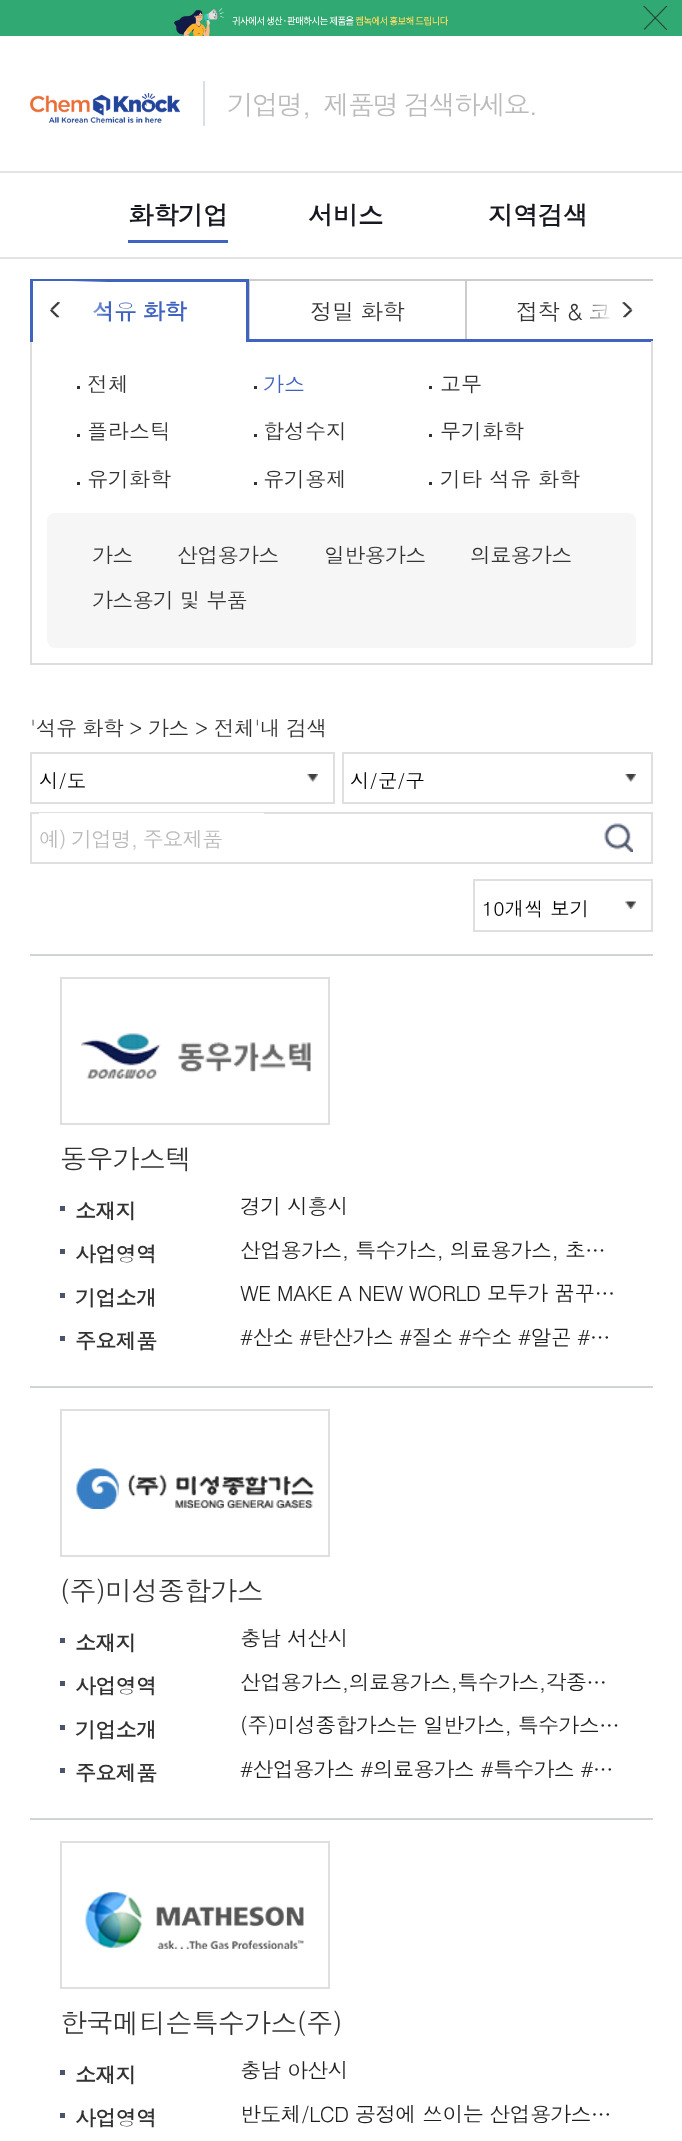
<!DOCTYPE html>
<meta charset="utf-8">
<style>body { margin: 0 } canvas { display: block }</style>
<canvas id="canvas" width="682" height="2141"></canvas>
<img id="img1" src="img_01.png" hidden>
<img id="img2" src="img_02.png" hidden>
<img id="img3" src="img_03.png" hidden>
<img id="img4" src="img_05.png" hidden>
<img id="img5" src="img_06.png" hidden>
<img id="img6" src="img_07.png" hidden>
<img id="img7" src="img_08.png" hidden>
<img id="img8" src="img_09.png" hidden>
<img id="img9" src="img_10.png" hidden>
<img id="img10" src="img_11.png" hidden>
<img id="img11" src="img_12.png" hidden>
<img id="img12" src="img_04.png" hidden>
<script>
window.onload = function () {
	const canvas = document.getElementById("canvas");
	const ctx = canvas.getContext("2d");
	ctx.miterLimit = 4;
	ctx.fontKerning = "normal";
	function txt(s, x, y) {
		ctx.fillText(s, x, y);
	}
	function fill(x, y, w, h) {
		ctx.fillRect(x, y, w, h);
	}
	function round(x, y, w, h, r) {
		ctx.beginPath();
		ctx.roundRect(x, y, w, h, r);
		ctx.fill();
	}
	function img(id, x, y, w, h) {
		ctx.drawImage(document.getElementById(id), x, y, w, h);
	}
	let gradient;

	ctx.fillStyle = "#FFFFFF";
	fill(0, 0, 682, 2141);
	ctx.fillStyle = "#30A973";
	fill(0, 0, 682, 36);
	img("img1", 174, 8, 274, 28);
	img("img2", 643, 6, 25, 24);
	img("img3", 30, 93, 150, 30);
	ctx.fillStyle = "#D8DFE7";
	fill(203, 81, 2, 45);
	ctx.fillStyle = "#E3E3E3";
	fill(0, 171, 682, 2);
	fill(0, 257, 682, 2);
	ctx.fillStyle = "#3F63BF";
	fill(128, 240, 100, 3);
	img("img4", 622, 302, 11, 16);
	ctx.fillStyle = "#CCCCCC";
	fill(248, 279, 405, 2);
	ctx.fillStyle = "#3F63BF";
	fill(30, 279, 219, 3);
	fill(246, 279, 3, 63);
	fill(249, 339, 404, 3);
	ctx.fillStyle = "#DDDDDD";
	fill(651, 341, 2, 324);
	fill(30, 663, 623, 2);
	fill(30, 341, 2, 324);
	ctx.fillStyle = "#3F63BF";
	fill(30, 279, 3, 63);
	ctx.fillStyle = "#CCCCCC";
	fill(249, 279, 1, 60);
	fill(465, 279, 2, 60);
	ctx.fillStyle = "#333333";
	fill(77, 386, 3, 3);
	fill(254, 386, 3, 3);
	fill(429, 386, 3, 3);
	fill(77, 434, 3, 3);
	fill(254, 434, 3, 3);
	fill(429, 434, 3, 3);
	fill(77, 482, 3, 3);
	fill(254, 482, 3, 3);
	fill(429, 482, 3, 3);
	ctx.fillStyle = "#F6F6F6";
	round(47, 513, 589, 135, 8);
	img("img5", 307, 774, 11, 8);
	ctx.strokeStyle = "#DFDFDF";
	ctx.lineWidth = 2;
	ctx.strokeRect(31, 753, 303, 50);
	img("img6", 625, 774, 11, 8);
	ctx.strokeRect(343, 753, 309, 50);
	ctx.strokeRect(31, 813, 621, 50);
	ctx.fillStyle = "#FFFFFF";
	fill(39, 813, 225, 1);
	img("img7", 604, 823, 29, 29);
	img("img8", 625, 901, 11, 8);
	ctx.strokeRect(474, 880, 178, 51);
	ctx.fillStyle = "#CFD4D9";
	fill(30, 954, 623, 2);
	fill(30, 1386, 623, 2);
	ctx.strokeRect(61, 978, 268, 146);
	img("img9", 81, 1033, 230, 46);
	ctx.fillStyle = "#4A556B";
	fill(60, 1206, 5, 5);
	fill(60, 1249, 5, 5);
	fill(60, 1293, 5, 5);
	fill(60, 1336, 5, 5);
	ctx.fillStyle = "#CFD4D9";
	fill(30, 1818, 623, 2);
	ctx.strokeRect(61, 1410, 268, 146);
	img("img10", 76, 1468, 238, 41);
	ctx.fillStyle = "#4A556B";
	fill(60, 1638, 5, 5);
	fill(60, 1681, 5, 5);
	fill(60, 1725, 5, 5);
	fill(60, 1768, 5, 5);
	ctx.strokeRect(61, 1842, 268, 146);
	img("img11", 85, 1892, 219, 57);
	fill(60, 2070, 5, 5);
	fill(60, 2113, 5, 5);
	ctx.letterSpacing = "-2.2px";
	ctx.font = "27px Dotum";
	ctx.fillStyle = "#BBBBBB";
	txt("기업명,  제품명 검색하세요.", 227, 115);
	ctx.letterSpacing = "-0.5px";
	ctx.font = "bold 25.5px Dotum";
	ctx.fillStyle = "#161920";
	txt("화학기업", 128, 225);
	txt("서비스", 308, 225);
	txt("지역검색", 488, 225);
	ctx.letterSpacing = "-0.7px";
	ctx.font = "bold 22.5px Dotum";
	ctx.fillStyle = "#3F63BF";
	txt("석유 화학", 92, 320);
	gradient = ctx.createLinearGradient(108, 309, 33, 309);
	gradient.addColorStop(0, "rgba(255, 255, 255, 0)");
	gradient.addColorStop(0.49, "#FFFFFF");
	ctx.fillStyle = gradient;
	fill(33, 281, 74, 35);
	img("img12", 49, 301, 11, 17);
	ctx.font = "22.5px Dotum";
	ctx.fillStyle = "#333333";
	txt("정밀 화학", 310, 320);
	txt("접착 & 코", 516, 320);
	gradient = ctx.createLinearGradient(578, 309, 653, 309);
	gradient.addColorStop(0, "rgba(255, 255, 255, 0)");
	gradient.addColorStop(0.49, "#FFFFFF");
	ctx.fillStyle = gradient;
	fill(579, 304, 31, 16);
	ctx.letterSpacing = "0px";
	ctx.font = "21px Dotum";
	ctx.fillStyle = "#333333";
	txt("전체", 87, 392);
	ctx.fillStyle = "#3F63BF";
	txt("가스", 263, 392);
	ctx.fillStyle = "#333333";
	txt("고무", 440, 392);
	txt("플라스틱", 87, 439);
	txt("합성수지", 263, 439);
	txt("무기화학", 440, 439);
	txt("유기화학", 87, 487);
	txt("유기용제", 263, 487);
	txt("기타 석유 화학", 440, 487);
	ctx.letterSpacing = "-0.7px";
	txt("가스", 92, 563);
	txt("산업용가스", 177, 563);
	txt("일반용가스", 324, 563);
	txt("의료용가스", 470, 563);
	txt("가스용기 및 부품", 92, 608);
	txt("'석유 화학 > 가스 > 전체'내 검색", 30, 736);
	ctx.letterSpacing = "0px";
	ctx.font = "19.5px Dotum";
	ctx.fillStyle = "#000000";
	txt("시/도", 39, 788);
	txt("시/군/구", 350, 788);
	ctx.letterSpacing = "-1.25px";
	ctx.font = "21px Dotum";
	ctx.fillStyle = "#BBBBBB";
	txt("예) 기업명, 주요제품", 39, 847);
	ctx.letterSpacing = "0px";
	ctx.font = "19.5px Dotum";
	ctx.fillStyle = "#000000";
	txt("10개씩 보기", 482, 916);
	ctx.letterSpacing = "-0.7px";
	ctx.font = "27px Dotum";
	ctx.fillStyle = "#333333";
	txt("동우가스텍", 60, 1169);
	ctx.font = "bold 21px Dotum";
	txt("소재지", 75, 1219);
	ctx.font = "21px Dotum";
	ctx.fillStyle = "#1F1F1F";
	txt("경기 시흥시", 240, 1214);
	ctx.font = "bold 21px Dotum";
	ctx.fillStyle = "#333333";
	txt("사업영역", 75, 1262);
	ctx.font = "21px Dotum";
	ctx.fillStyle = "#1F1F1F";
	txt("산업용가스, 특수가스, 의료용가스, 초…", 240, 1258);
	ctx.font = "bold 21px Dotum";
	ctx.fillStyle = "#333333";
	txt("기업소개", 75, 1306);
	ctx.font = "21px Dotum";
	ctx.fillStyle = "#1F1F1F";
	txt("WE MAKE A NEW WORLD 모두가 꿈꾸…", 240, 1301);
	ctx.font = "bold 21px Dotum";
	ctx.fillStyle = "#333333";
	txt("주요제품", 75, 1349);
	ctx.font = "21px Dotum";
	ctx.fillStyle = "#1F1F1F";
	txt("#산소 #탄산가스 #질소 #수소 #알곤 #…", 240, 1345);
	ctx.font = "27px Dotum";
	ctx.fillStyle = "#333333";
	txt("(주)미성종합가스", 60, 1601);
	ctx.font = "bold 21px Dotum";
	txt("소재지", 75, 1651);
	ctx.font = "21px Dotum";
	ctx.fillStyle = "#1F1F1F";
	txt("충남 서산시", 240, 1646);
	ctx.font = "bold 21px Dotum";
	ctx.fillStyle = "#333333";
	txt("사업영역", 75, 1694);
	ctx.font = "21px Dotum";
	ctx.fillStyle = "#1F1F1F";
	txt("산업용가스,의료용가스,특수가스,각종…", 240, 1690);
	ctx.font = "bold 21px Dotum";
	ctx.fillStyle = "#333333";
	txt("기업소개", 75, 1738);
	ctx.font = "21px Dotum";
	ctx.fillStyle = "#1F1F1F";
	txt("(주)미성종합가스는 일반가스, 특수가스…", 240, 1733);
	ctx.font = "bold 21px Dotum";
	ctx.fillStyle = "#333333";
	txt("주요제품", 75, 1781);
	ctx.font = "21px Dotum";
	ctx.fillStyle = "#1F1F1F";
	txt("#산업용가스 #의료용가스 #특수가스 #…", 240, 1777);
	ctx.font = "27px Dotum";
	ctx.fillStyle = "#333333";
	txt("한국메티슨특수가스(주)", 60, 2033);
	ctx.font = "bold 21px Dotum";
	txt("소재지", 75, 2083);
	ctx.font = "21px Dotum";
	ctx.fillStyle = "#1F1F1F";
	txt("충남 아산시", 240, 2078);
	ctx.font = "bold 21px Dotum";
	ctx.fillStyle = "#333333";
	txt("사업영역", 75, 2126);
	ctx.font = "21px Dotum";
	ctx.fillStyle = "#1F1F1F";
	txt("반도체/LCD 공정에 쓰이는 산업용가스…", 240, 2122);
};
</script>
